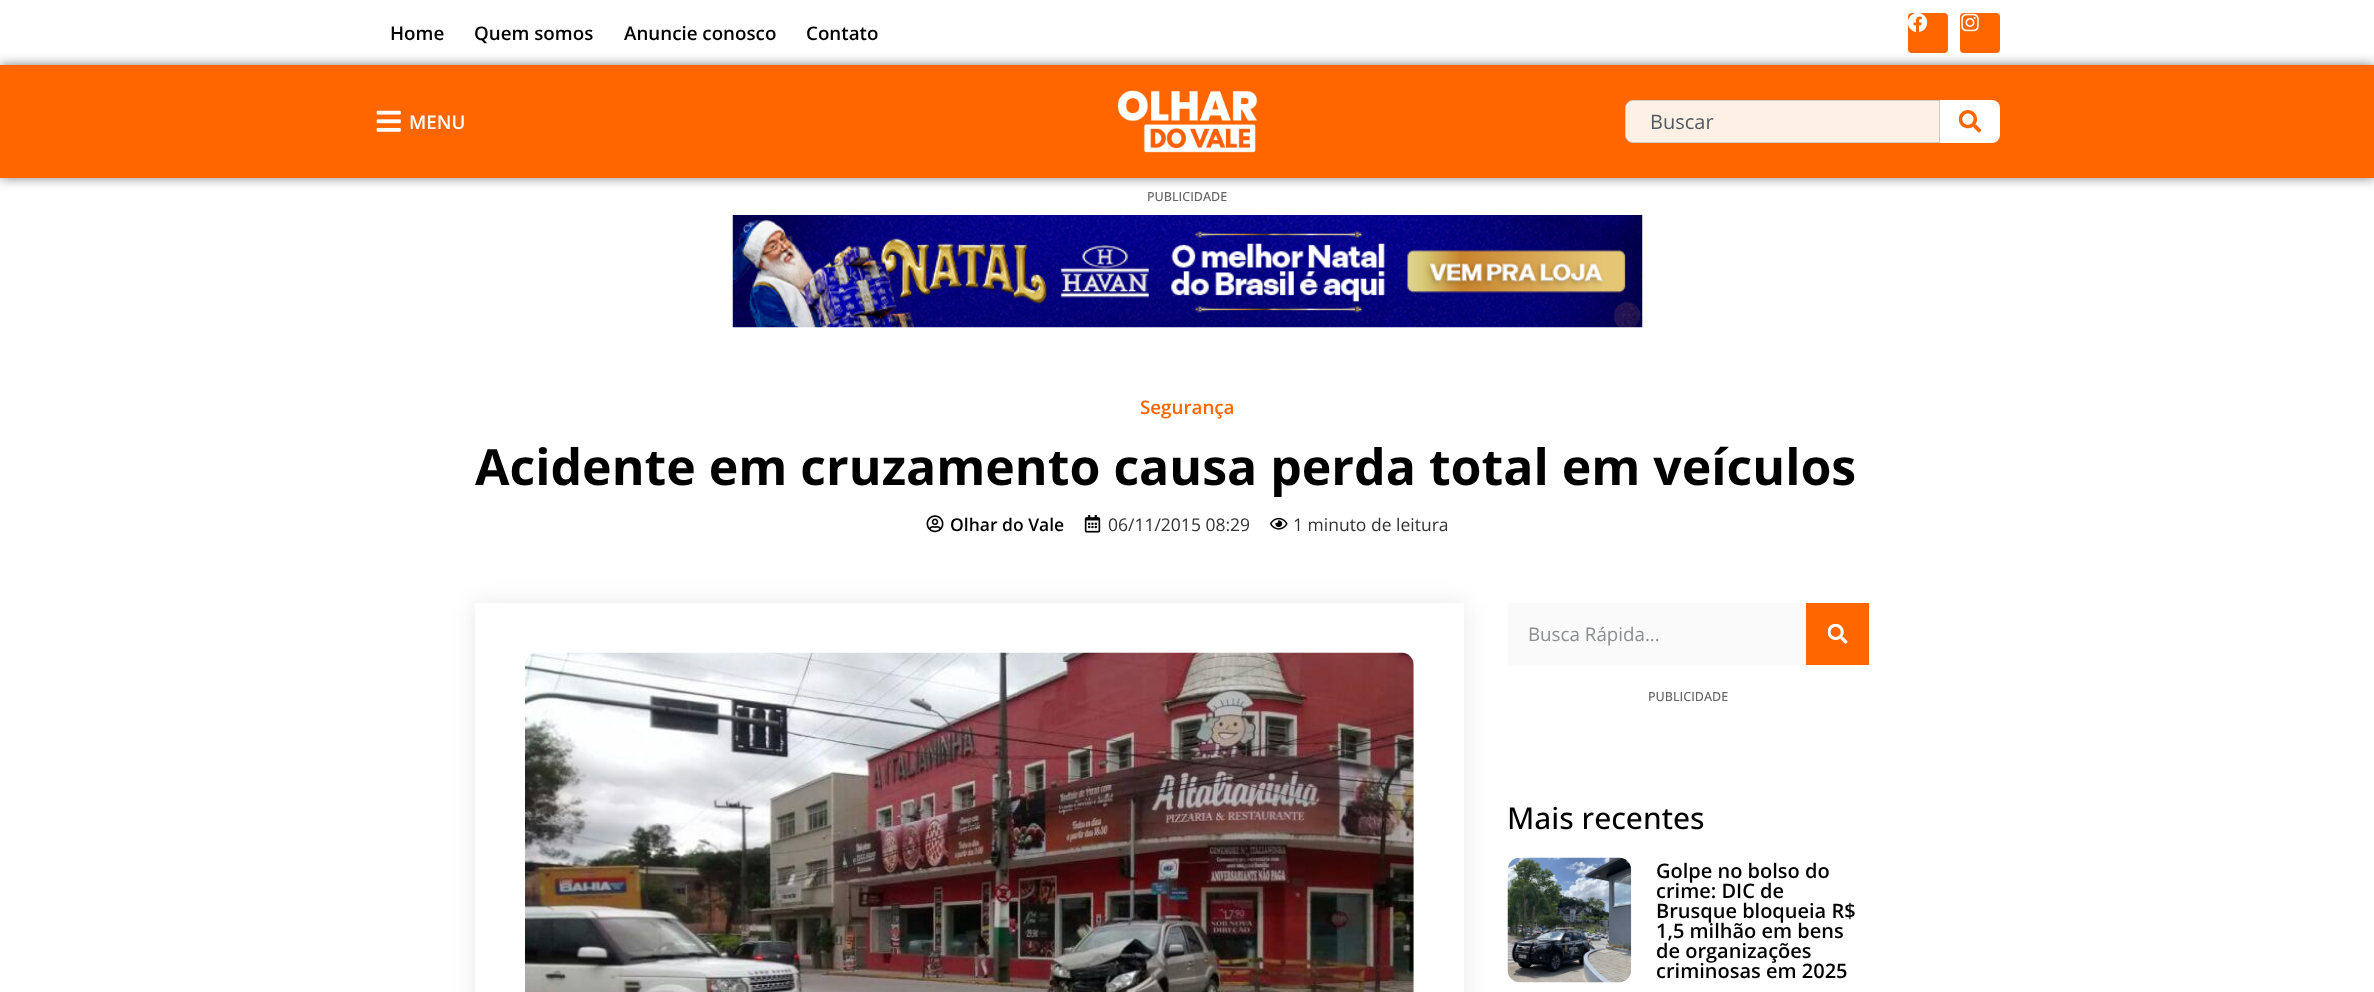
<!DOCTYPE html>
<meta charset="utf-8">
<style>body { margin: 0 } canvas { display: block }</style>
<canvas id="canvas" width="2374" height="992"></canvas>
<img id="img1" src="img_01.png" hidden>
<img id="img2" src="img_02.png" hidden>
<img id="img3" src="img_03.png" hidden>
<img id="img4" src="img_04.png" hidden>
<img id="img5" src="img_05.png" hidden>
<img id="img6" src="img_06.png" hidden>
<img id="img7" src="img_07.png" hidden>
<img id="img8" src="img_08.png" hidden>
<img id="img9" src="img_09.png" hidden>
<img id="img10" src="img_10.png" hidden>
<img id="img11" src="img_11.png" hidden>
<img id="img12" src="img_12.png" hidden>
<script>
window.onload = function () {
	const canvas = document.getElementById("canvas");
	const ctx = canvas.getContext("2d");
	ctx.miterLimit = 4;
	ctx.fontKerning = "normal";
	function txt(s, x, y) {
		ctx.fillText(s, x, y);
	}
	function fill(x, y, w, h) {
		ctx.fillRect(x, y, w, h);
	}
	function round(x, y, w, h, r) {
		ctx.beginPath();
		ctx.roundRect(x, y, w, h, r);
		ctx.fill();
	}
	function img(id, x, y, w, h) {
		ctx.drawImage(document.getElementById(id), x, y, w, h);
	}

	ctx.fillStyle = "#FFFFFF";
	fill(0, 0, 2374, 992);
	ctx.fillStyle = "rgba(0, 0, 0, 0.5)";
	ctx.filter = "blur(6px)";
	ctx.beginPath();
	ctx.rect(0, 65, 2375, 113);
	ctx.fill();
	ctx.filter = "none";
	ctx.fillStyle = "#FF6600";
	round(1908, 13, 40, 40, 4);
	img("img1", 1908, 13, 20, 19);
	round(1960, 13, 40, 40, 4);
	img("img2", 1961, 13, 18, 19);
	fill(0, 65, 2374, 113);
	img("img3", 376, 110, 25, 22);
	img("img4", 1117, 90, 141, 63);
	ctx.fillStyle = "#FFF0E6";
	ctx.beginPath();
	ctx.roundRect(1625.5, 100.5, 314, 42, [7.5, 0, 0, 7.5]);
	ctx.fill();
	ctx.strokeStyle = "#CDCDCD";
	ctx.stroke();
	ctx.fillStyle = "#FFFFFF";
	ctx.beginPath();
	ctx.roundRect(1940, 100, 60, 43, [0, 8, 8, 0]);
	ctx.fill();
	img("img5", 1959, 110, 22, 23);
	img("img6", 732, 215, 911, 113);
	img("img7", 926, 515, 18, 18);
	img("img8", 1084, 515, 17, 18);
	img("img9", 1270, 517, 18, 13);
	ctx.fillStyle = "rgba(0, 0, 0, 0.09)";
	ctx.filter = "blur(12.5px)";
	ctx.beginPath();
	ctx.rect(475, 603, 989, 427);
	ctx.fill();
	ctx.filter = "none";
	ctx.fillStyle = "#FFFFFF";
	fill(475, 603, 989, 389);
	img("img10", 525, 652, 889, 340);
	ctx.fillStyle = "#FAFAFA";
	fill(1508, 603, 298, 62);
	ctx.fillStyle = "#FF6600";
	fill(1806, 603, 63, 62);
	img("img11", 1828, 624, 20, 20);
	img("img12", 1507, 857, 125, 126);
	ctx.font = "600 18.75px Open Sans";
	ctx.fillStyle = "#000000";
	txt("Home", 390, 40);
	txt("Quem somos", 474, 40);
	txt("Anuncie conosco", 624, 40);
	txt("Contato", 806, 40);
	ctx.fillStyle = "#FFFFFF";
	txt("MENU", 409, 129);
	ctx.font = "20px Open Sans";
	ctx.fillStyle = "#515962";
	txt("Buscar", 1650, 129);
	ctx.font = "500 12.5px Open Sans";
	ctx.fillStyle = "#656565";
	txt("PUBLICIDADE", 1147, 201);
	ctx.font = "600 18.75px Open Sans";
	ctx.fillStyle = "#FF6600";
	txt("Segurança", 1140, 414);
	ctx.font = "bold 50px Open Sans";
	ctx.fillStyle = "#000000";
	txt("Acidente em cruzamento causa perda total em veículos", 475, 485);
	ctx.font = "600 17.5px Open Sans";
	txt("Olhar do Vale", 950, 531);
	ctx.font = "17.5px Open Sans";
	ctx.fillStyle = "#333333";
	txt("06/11/2015 08:29", 1108, 531);
	txt("1 minuto de leitura", 1293, 531);
	ctx.font = "18.75px Open Sans";
	ctx.fillStyle = "#8A8D91";
	txt("Busca Rápida...", 1528, 641);
	ctx.font = "500 12.5px Open Sans";
	ctx.fillStyle = "#656565";
	txt("PUBLICIDADE", 1648, 701);
	ctx.font = "500 30px Open Sans";
	ctx.fillStyle = "#000000";
	txt("Mais recentes", 1507, 829);
	ctx.font = "600 20px Open Sans";
	txt("Golpe no bolso do", 1656, 878);
	txt("crime: DIC de", 1656, 898);
	txt("Brusque bloqueia R$", 1656, 918);
	txt("1,5 milhão em bens", 1656, 938);
	txt("de organizações", 1656, 958);
	txt("criminosas em 2025", 1656, 978);
};
</script>
